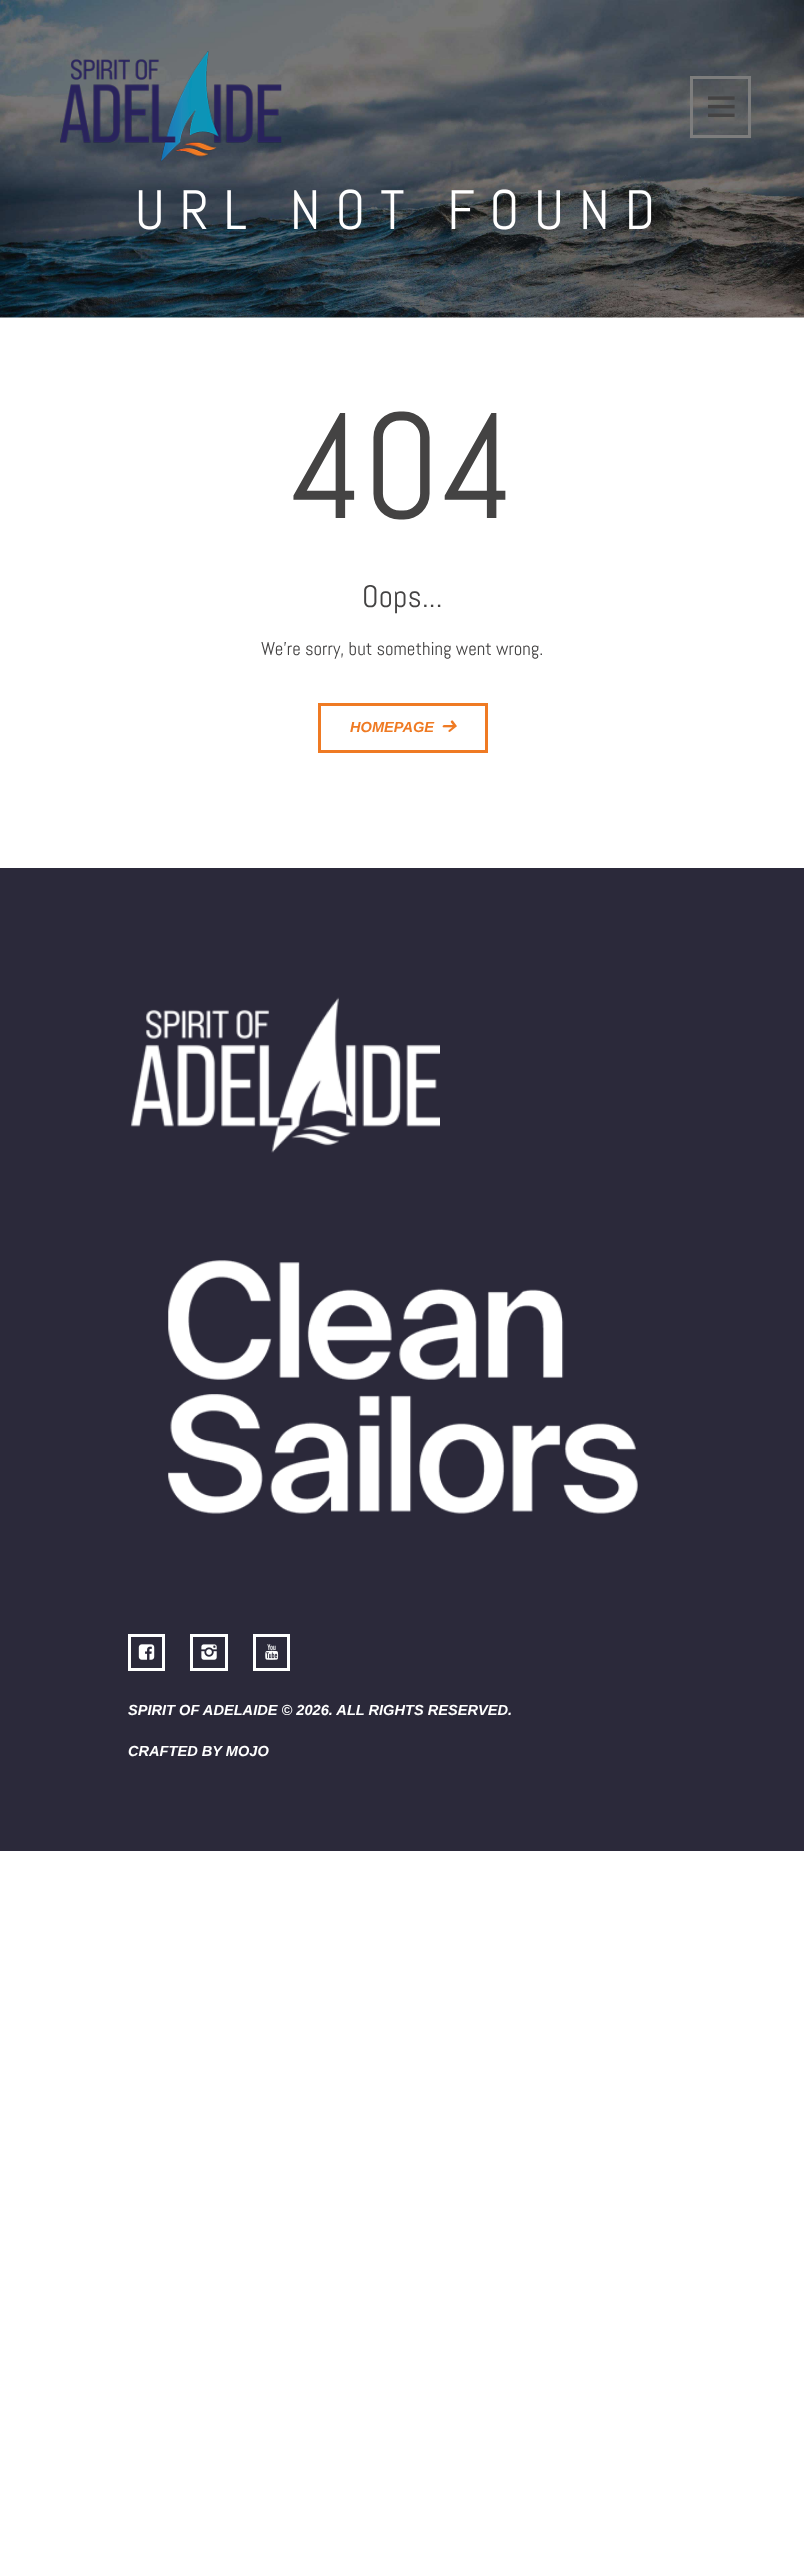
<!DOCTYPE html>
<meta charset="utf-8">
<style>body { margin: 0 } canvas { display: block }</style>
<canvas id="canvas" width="804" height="2561"></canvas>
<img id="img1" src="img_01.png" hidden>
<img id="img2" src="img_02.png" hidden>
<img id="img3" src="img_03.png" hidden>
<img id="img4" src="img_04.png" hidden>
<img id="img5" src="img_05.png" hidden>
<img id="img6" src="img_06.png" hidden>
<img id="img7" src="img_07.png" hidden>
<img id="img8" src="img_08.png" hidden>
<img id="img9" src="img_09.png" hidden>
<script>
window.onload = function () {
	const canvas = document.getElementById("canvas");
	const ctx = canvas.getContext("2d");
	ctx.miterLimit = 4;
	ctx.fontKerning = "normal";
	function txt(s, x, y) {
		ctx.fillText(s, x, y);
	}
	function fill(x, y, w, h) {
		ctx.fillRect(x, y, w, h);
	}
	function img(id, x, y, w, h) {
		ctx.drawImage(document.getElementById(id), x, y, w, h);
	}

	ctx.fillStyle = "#FFFFFF";
	fill(0, 0, 804, 2561);
	img("img1", 0, 0, 804, 318);
	img("img2", 60, 51, 222, 111);
	ctx.strokeStyle = "#7D7D7D";
	ctx.lineWidth = 3;
	ctx.strokeRect(691.5, 77.5, 58, 59);
	img("img3", 708, 96, 27, 21);
	ctx.strokeStyle = "#EF7A23";
	ctx.strokeRect(319.5, 704.5, 167, 47);
	img("img4", 442, 720, 15, 12);
	ctx.fillStyle = "#2B293A";
	fill(0, 868, 804, 983);
	img("img5", 130, 997, 310, 156);
	img("img6", 168, 1260, 470, 254);
	ctx.strokeStyle = "#FFFFFF";
	ctx.strokeRect(129.5, 1635.5, 34, 34);
	img("img7", 138, 1644, 17, 16);
	ctx.strokeRect(191.5, 1635.5, 35, 34);
	img("img8", 201, 1644, 16, 16);
	ctx.strokeRect(254.5, 1635.5, 34, 34);
	img("img9", 265, 1644, 14, 16);
	ctx.letterSpacing = "15px";
	ctx.font = "55.5px Abel";
	ctx.fillStyle = "#FFFFFF";
	txt("URL NOT FOUND", 135, 229);
	ctx.letterSpacing = "0px";
	ctx.font = "150px Abel";
	ctx.fillStyle = "#444343";
	txt("404", 289, 518);
	ctx.letterSpacing = "0.25px";
	ctx.font = "31px Abel";
	txt("Oops...", 362, 607);
	ctx.letterSpacing = "0px";
	ctx.font = "18.75px Abel";
	txt("We're sorry, but something went wrong.", 261, 655);
	ctx.font = "italic bold 14.6px Liberation Sans";
	ctx.fillStyle = "#EF7A23";
	txt("HOMEPAGE", 350, 732);
	ctx.fillStyle = "#FFFFFF";
	txt("SPIRIT OF ADELAIDE © 2026. ALL RIGHTS RESERVED.", 128, 1715);
	txt("CRAFTED BY MOJO", 128, 1756);
};
</script>
